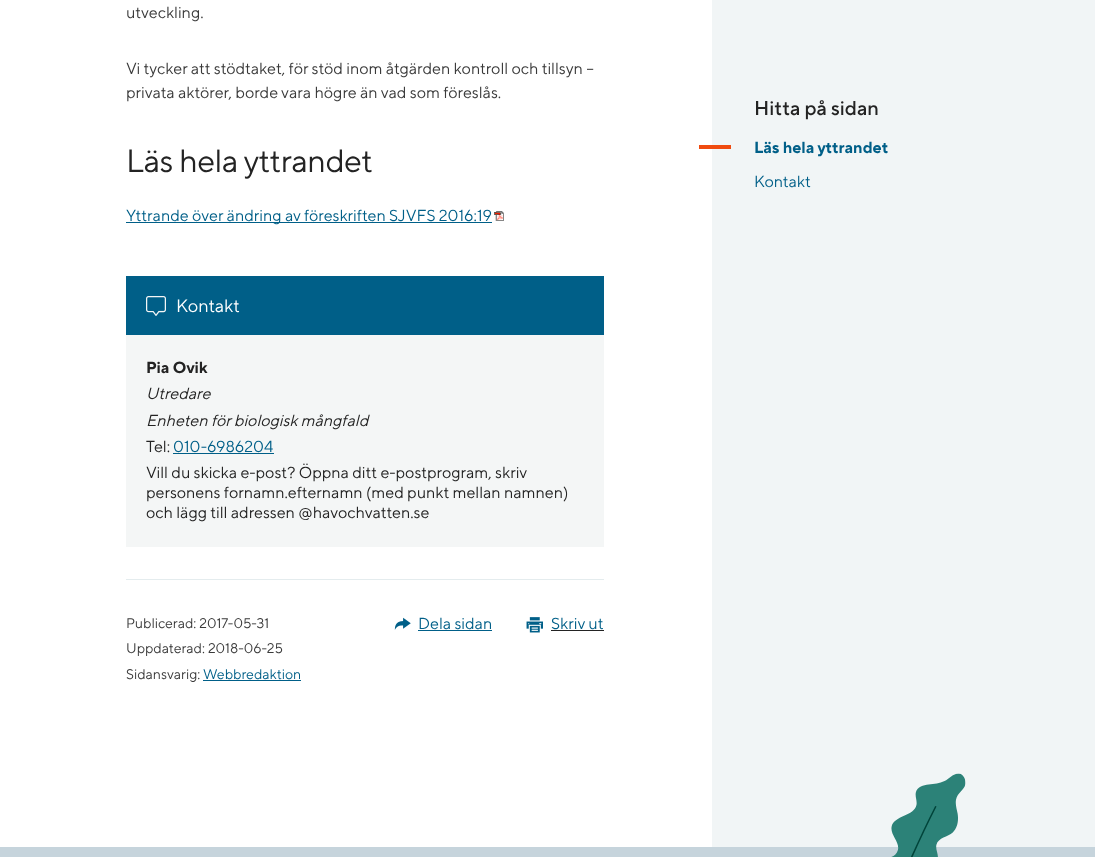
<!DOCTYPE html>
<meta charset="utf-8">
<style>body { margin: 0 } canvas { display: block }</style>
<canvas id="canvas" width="1095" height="857"></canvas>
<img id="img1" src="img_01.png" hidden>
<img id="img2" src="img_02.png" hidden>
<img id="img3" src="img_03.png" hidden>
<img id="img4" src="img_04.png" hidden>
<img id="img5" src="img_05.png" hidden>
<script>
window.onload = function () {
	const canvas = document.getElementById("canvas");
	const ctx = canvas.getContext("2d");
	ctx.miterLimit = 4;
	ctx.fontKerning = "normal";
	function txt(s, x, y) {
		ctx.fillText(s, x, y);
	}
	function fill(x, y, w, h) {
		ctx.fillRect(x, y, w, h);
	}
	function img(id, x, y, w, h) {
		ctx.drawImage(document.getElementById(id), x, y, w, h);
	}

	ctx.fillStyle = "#FFFFFF";
	fill(0, 0, 1095, 857);
	ctx.fillStyle = "#005F88";
	fill(126, 222, 366, 1);
	img("img1", 494, 211, 10, 10);
	ctx.fillStyle = "#F4F6F6";
	fill(126, 335, 478, 212);
	ctx.fillStyle = "#005F88";
	fill(126, 276, 478, 59);
	img("img2", 146, 296, 20, 20);
	fill(173, 453, 101, 1);
	ctx.fillStyle = "#E4ECEE";
	fill(126, 579, 478, 1);
	ctx.fillStyle = "#005F88";
	fill(203, 680, 98, 1);
	img("img3", 394, 617, 17, 13);
	fill(418, 630, 74, 1);
	img("img4", 526, 617, 17, 16);
	ctx.fillStyle = "#232323";
	fill(551, 630, 53, 1);
	ctx.fillStyle = "#F1F5F6";
	fill(712, 0, 383, 847);
	ctx.fillStyle = "#F04B0F";
	fill(699, 145, 32, 4);
	ctx.fillStyle = "#C6D4DC";
	fill(0, 847, 1095, 10);
	img("img5", 891, 773, 75, 84);
	ctx.font = "16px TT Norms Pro";
	ctx.fillStyle = "#3A3A3A";
	txt("utveckling.", 126, 18);
	txt("Vi tycker att stödtaket, för stöd inom åtgärden kontroll och tillsyn –", 126, 74);
	txt("privata aktörer, borde vara högre än vad som föreslås.", 126, 98);
	ctx.letterSpacing = "-0.5px";
	ctx.font = "32px TT Norms Pro";
	ctx.fillStyle = "#232323";
	txt("Läs hela yttrandet", 126, 172);
	ctx.letterSpacing = "0px";
	ctx.font = "16px TT Norms Pro";
	ctx.fillStyle = "#005F88";
	txt("Yttrande över ändring av föreskriften SJVFS 2016:19", 126, 221);
	ctx.font = "18px TT Norms Pro";
	ctx.fillStyle = "#FFFFFF";
	txt("Kontakt", 176, 312);
	ctx.font = "bold 16px TT Norms Pro";
	ctx.fillStyle = "#232323";
	txt("Pia Ovik", 146, 373);
	ctx.font = "italic 16px TT Norms Pro";
	txt("Utredare", 146, 399);
	txt("Enheten för biologisk mångfald", 146, 426);
	ctx.font = "16px TT Norms Pro";
	txt("Tel:", 146, 452);
	ctx.fillStyle = "#005F88";
	txt("010-6986204", 173, 452);
	ctx.fillStyle = "#232323";
	txt("Vill du skicka e-post? Öppna ditt e-postprogram, skriv", 146, 478);
	txt("personens fornamn.efternamn (med punkt mellan namnen)", 146, 498);
	txt("och lägg till adressen @havochvatten.se", 146, 518);
	ctx.font = "14px TT Norms Pro";
	ctx.fillStyle = "#3A3A3A";
	txt("Publicerad: 2017-05-31", 126, 628);
	txt("Uppdaterad: 2018-06-25", 126, 653);
	txt("Sidansvarig:", 126, 679);
	ctx.fillStyle = "#005F88";
	txt("Webbredaktion", 203, 679);
	ctx.font = "16px TT Norms Pro";
	txt("Dela sidan", 418, 629);
	txt("Skriv ut", 551, 629);
	ctx.font = "500 20px TT Norms Pro";
	ctx.fillStyle = "#232323";
	txt("Hitta på sidan", 754, 115);
	ctx.font = "bold 16px TT Norms Pro";
	ctx.fillStyle = "#005F88";
	txt("Läs hela yttrandet", 754, 153);
	ctx.font = "16px TT Norms Pro";
	txt("Kontakt", 754, 187);
};
</script>
